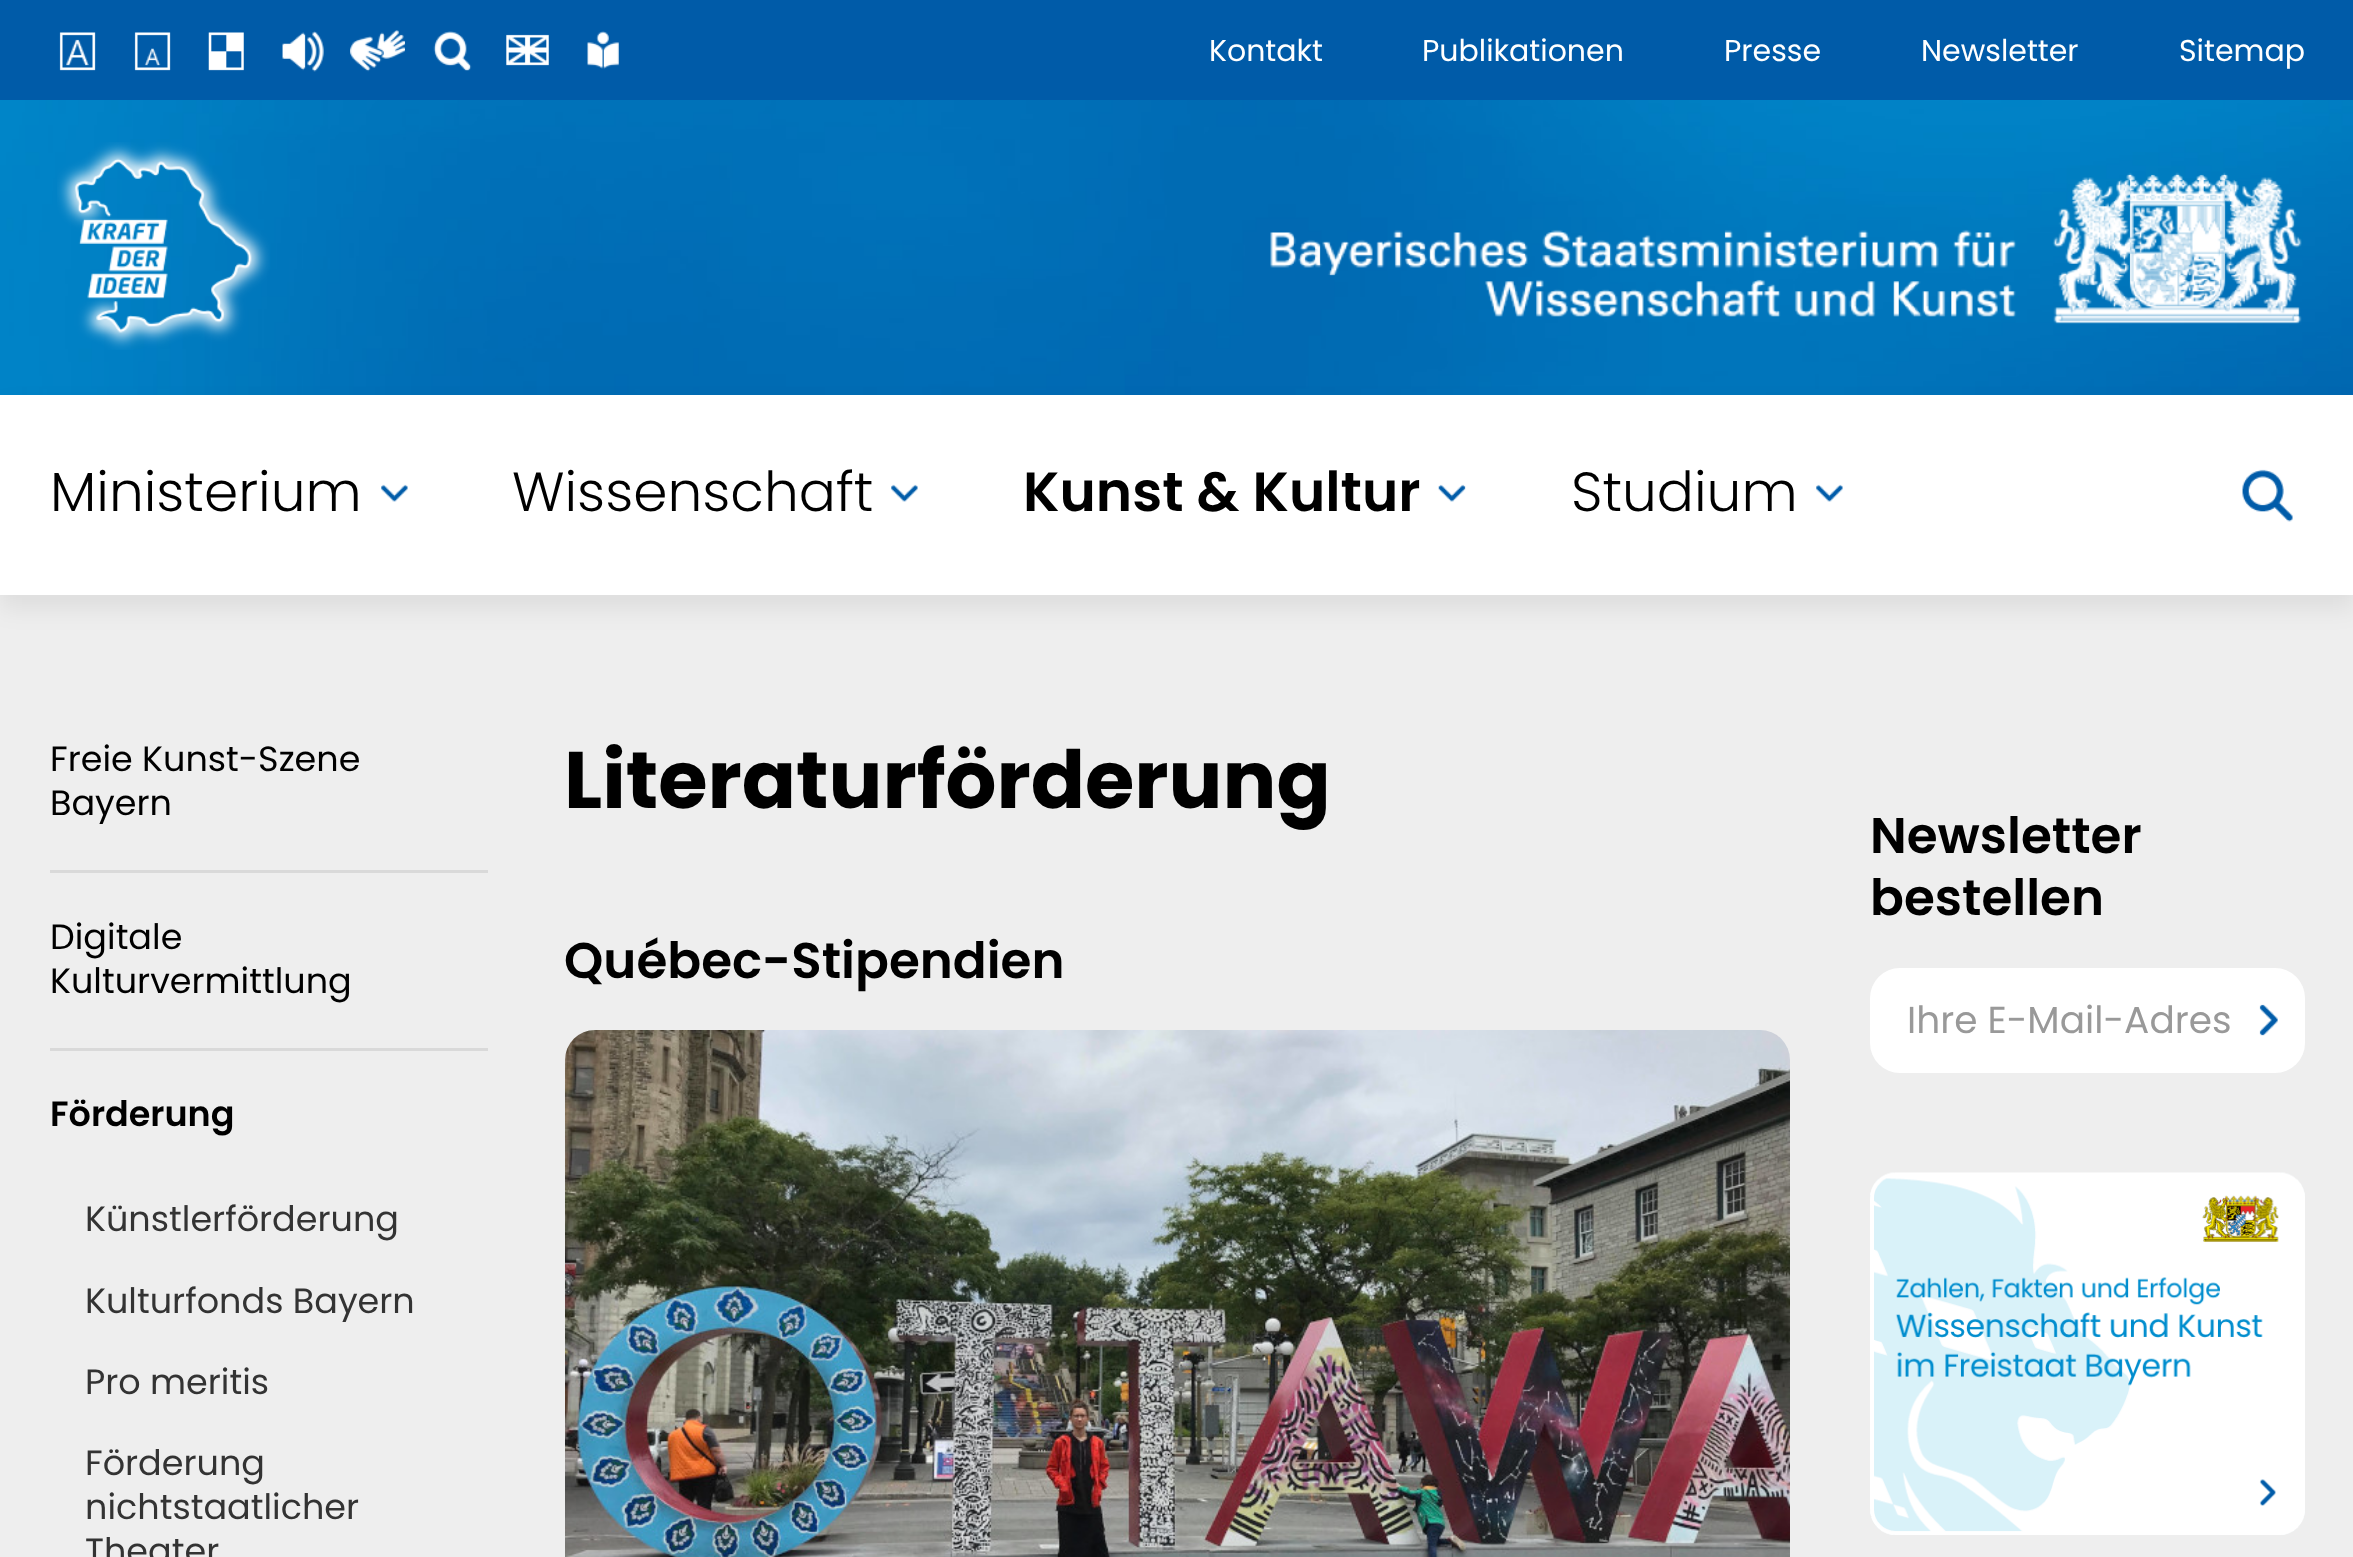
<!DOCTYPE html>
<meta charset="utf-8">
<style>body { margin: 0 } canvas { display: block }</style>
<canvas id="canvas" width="2353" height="1557"></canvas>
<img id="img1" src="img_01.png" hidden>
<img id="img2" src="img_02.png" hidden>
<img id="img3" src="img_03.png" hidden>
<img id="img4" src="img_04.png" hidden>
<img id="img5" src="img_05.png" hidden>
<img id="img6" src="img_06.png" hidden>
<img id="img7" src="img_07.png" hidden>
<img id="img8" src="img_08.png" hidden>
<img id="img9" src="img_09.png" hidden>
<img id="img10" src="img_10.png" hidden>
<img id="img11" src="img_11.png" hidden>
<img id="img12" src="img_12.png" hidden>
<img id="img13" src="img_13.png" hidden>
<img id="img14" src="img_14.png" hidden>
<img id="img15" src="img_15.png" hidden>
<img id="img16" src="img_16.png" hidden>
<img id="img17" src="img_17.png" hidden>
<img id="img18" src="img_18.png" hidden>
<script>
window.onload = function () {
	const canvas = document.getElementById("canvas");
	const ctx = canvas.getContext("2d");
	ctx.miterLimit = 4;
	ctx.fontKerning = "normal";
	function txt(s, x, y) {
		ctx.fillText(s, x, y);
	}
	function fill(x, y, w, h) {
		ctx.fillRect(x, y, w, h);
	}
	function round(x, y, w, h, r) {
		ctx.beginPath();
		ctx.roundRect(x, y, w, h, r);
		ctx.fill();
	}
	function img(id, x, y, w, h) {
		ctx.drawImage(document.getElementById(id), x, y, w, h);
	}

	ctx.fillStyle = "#EEEEEE";
	fill(0, 0, 2353, 1557);
	ctx.fillStyle = "#005BA8";
	fill(0, 0, 2353, 100);
	img("img1", 59, 32, 37, 39);
	img("img2", 134, 32, 37, 39);
	img("img3", 208, 32, 36, 39);
	img("img4", 282, 31, 42, 41);
	img("img5", 350, 30, 55, 42);
	img("img6", 433, 31, 39, 40);
	img("img7", 506, 34, 43, 32);
	img("img8", 587, 31, 32, 38);
	img("img9", 0, 100, 2353, 295);
	img("img10", 57, 142, 213, 208);
	img("img11", 1270, 172, 1032, 152);
	ctx.fillStyle = "rgba(0, 0, 0, 0.07)";
	ctx.filter = "blur(12.5px)";
	ctx.beginPath();
	ctx.rect(0, 408, 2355, 200);
	ctx.fill();
	ctx.filter = "none";
	ctx.fillStyle = "#FFFFFF";
	fill(0, 395, 2353, 200);
	img("img12", 381, 484, 27, 18);
	img("img12", 891, 484, 27, 18);
	img("img13", 1438, 484, 28, 18);
	img("img14", 1816, 484, 27, 18);
	img("img15", 2242, 469, 51, 53);
	ctx.fillStyle = "#D9D9D9";
	fill(50, 870, 438, 3);
	fill(50, 1048, 438, 3);
	img("img16", 565, 1030, 1225, 527);
	ctx.fillStyle = "#FFFFFF";
	round(1870, 968, 435, 105, 30);
	img("img17", 2259, 1004, 19, 32);
	img("img18", 1870, 1172, 435, 363);
	ctx.font = "30px Poppins";
	txt("Kontakt", 1209, 61);
	txt("Publikationen", 1422, 61);
	txt("Presse", 1724, 61);
	txt("Newsletter", 1921, 61);
	txt("Sitemap", 2179, 61);
	ctx.font = "300 55px Poppins";
	ctx.fillStyle = "#000000";
	txt("Ministerium", 50, 511);
	txt("Wissenschaft", 512, 511);
	ctx.font = "600 55px Poppins";
	txt("Kunst & Kultur", 1023, 511);
	ctx.font = "300 55px Poppins";
	txt("Studium", 1571, 511);
	ctx.font = "35px Poppins";
	txt("Freie Kunst-Szene", 50, 771);
	txt("Bayern", 50, 815);
	txt("Digitale", 50, 949);
	txt("Kulturvermittlung", 50, 993);
	ctx.font = "600 35px Poppins";
	txt("Förderung", 50, 1126);
	ctx.font = "35px Poppins";
	ctx.fillStyle = "#333333";
	txt("Künstlerförderung", 85, 1231);
	txt("Kulturfonds Bayern", 85, 1313);
	txt("Pro meritis", 85, 1394);
	txt("Förderung", 85, 1475);
	txt("nichtstaatlicher", 85, 1519);
	txt("Theater", 85, 1563);
	ctx.font = "bold 80px Poppins";
	ctx.fillStyle = "#000000";
	txt("Literaturförderung", 564, 808);
	ctx.font = "600 50px Poppins";
	txt("Québec-Stipendien", 564, 978);
	txt("Newsletter", 1870, 853);
	txt("bestellen", 1870, 915);
	ctx.font = "37.5px Poppins";
	ctx.fillStyle = "#999999";
	txt("Ihre E-Mail-Adres", 1907, 1033);
};
</script>
